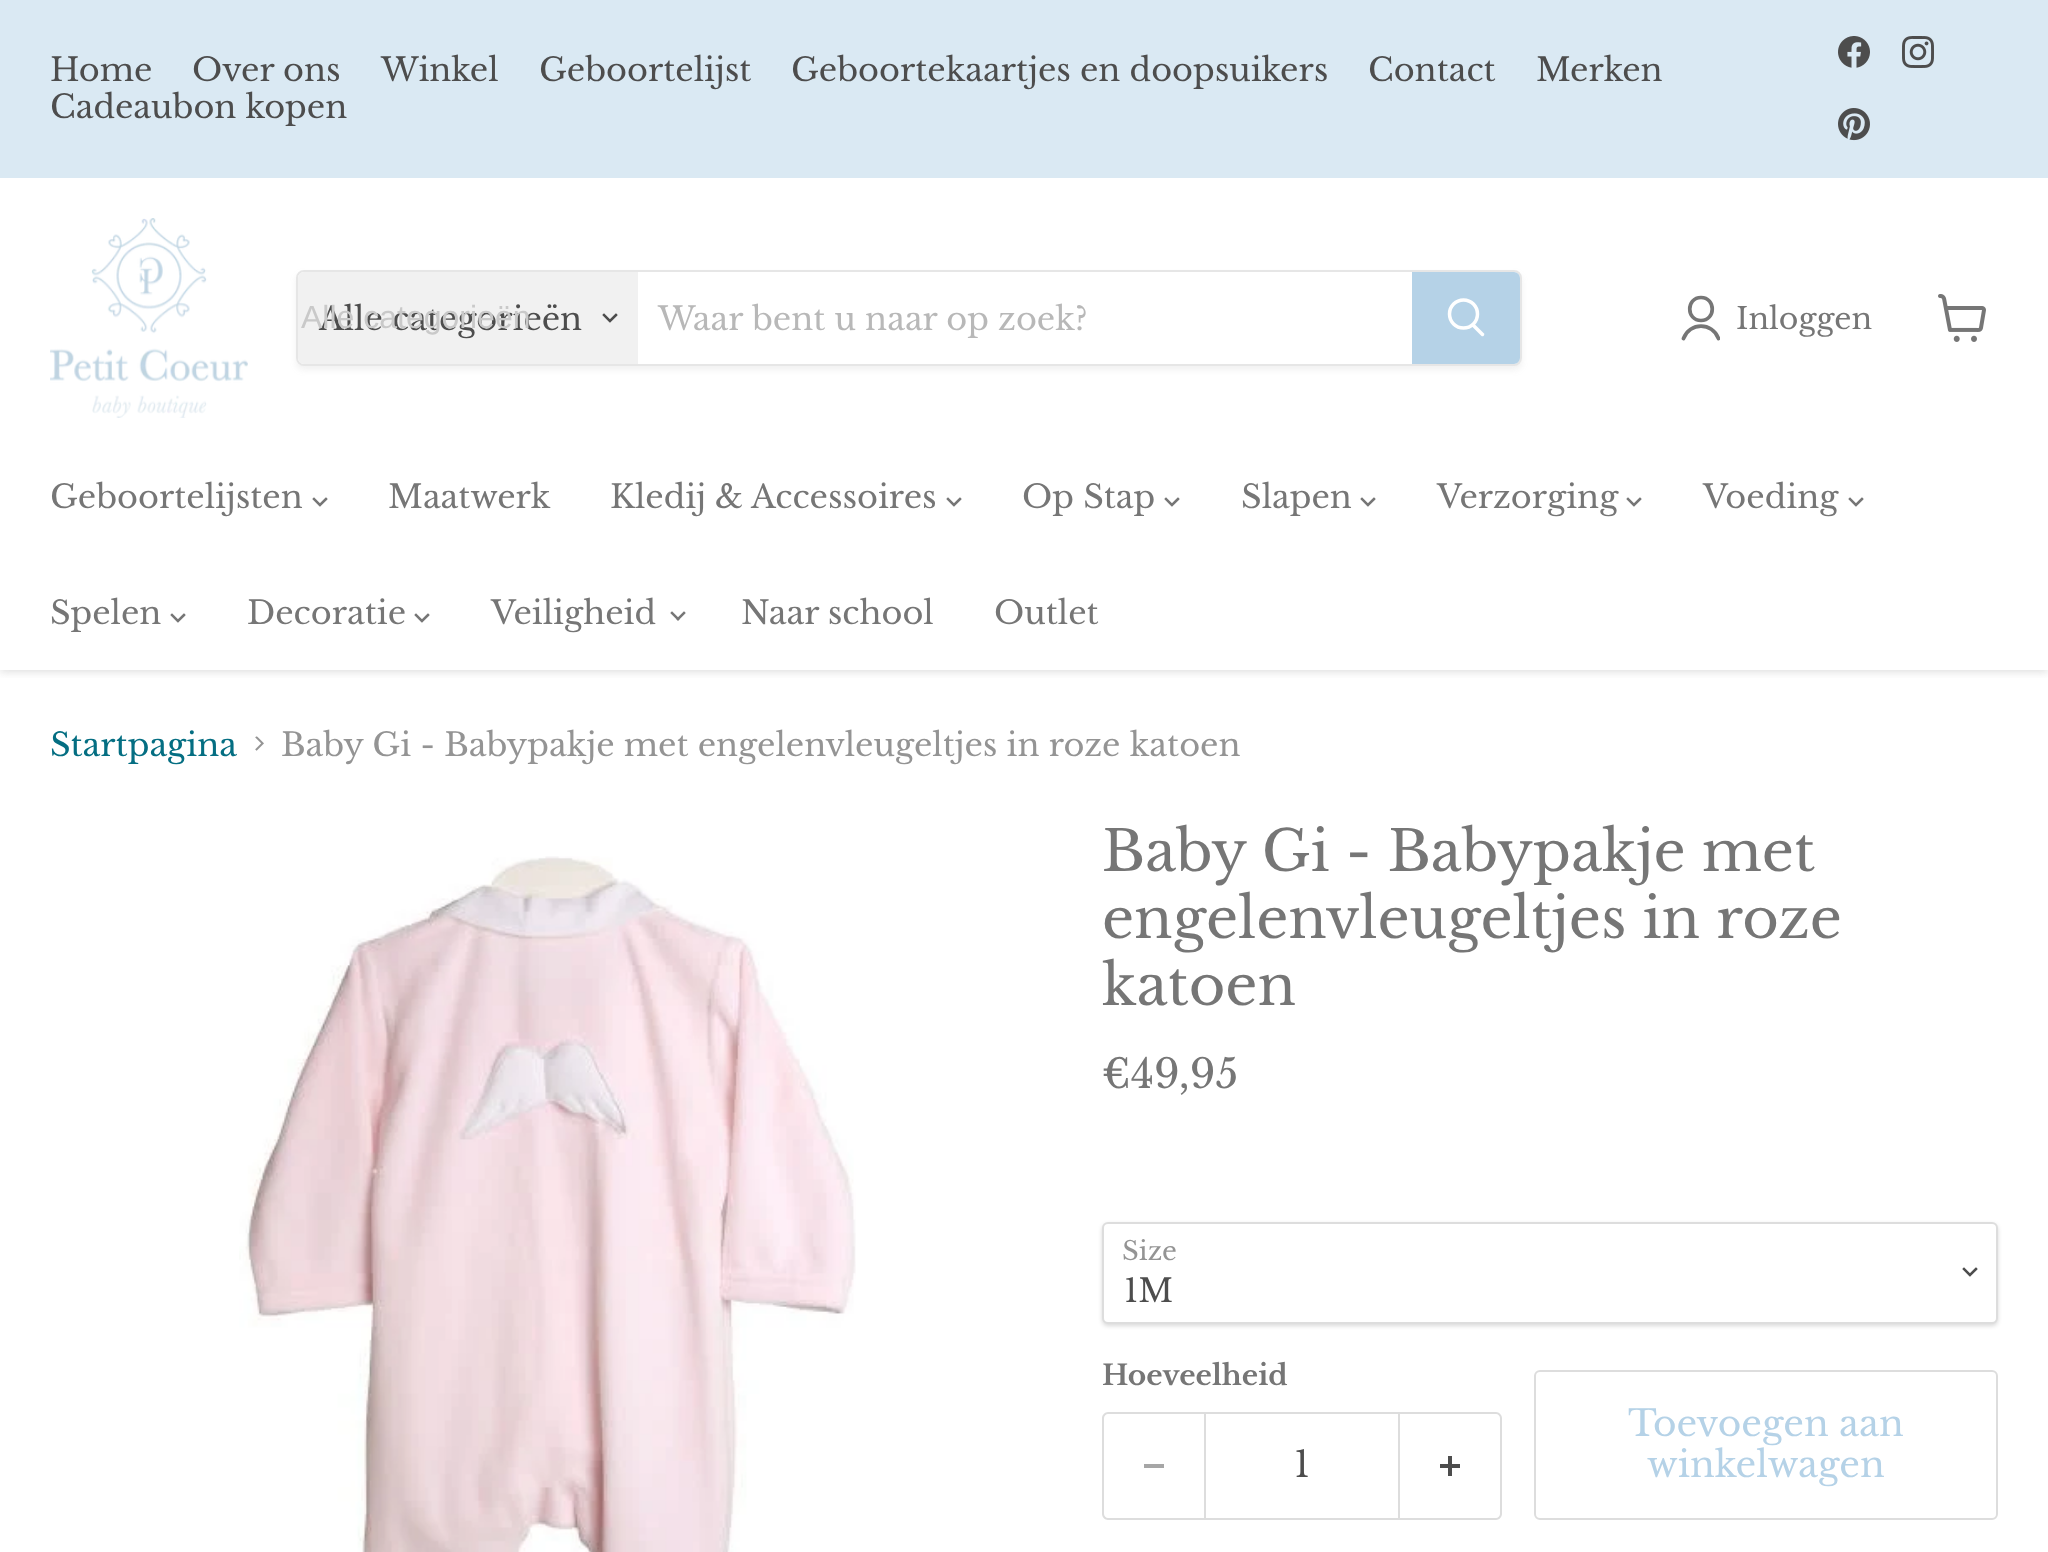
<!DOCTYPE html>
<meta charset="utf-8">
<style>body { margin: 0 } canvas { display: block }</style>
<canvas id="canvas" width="2048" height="1552"></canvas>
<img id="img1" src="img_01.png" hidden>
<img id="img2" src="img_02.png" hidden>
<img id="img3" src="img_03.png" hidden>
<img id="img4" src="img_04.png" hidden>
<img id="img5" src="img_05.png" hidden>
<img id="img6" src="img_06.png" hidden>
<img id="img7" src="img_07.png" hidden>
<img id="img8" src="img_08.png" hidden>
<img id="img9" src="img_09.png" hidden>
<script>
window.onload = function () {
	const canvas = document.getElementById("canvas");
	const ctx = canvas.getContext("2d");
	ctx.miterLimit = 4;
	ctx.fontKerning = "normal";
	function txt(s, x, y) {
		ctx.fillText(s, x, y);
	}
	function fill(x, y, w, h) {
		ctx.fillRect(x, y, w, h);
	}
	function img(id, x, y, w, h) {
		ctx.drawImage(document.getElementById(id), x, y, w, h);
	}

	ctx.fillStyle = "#FFFFFF";
	fill(0, 0, 2048, 1552);
	ctx.save();
	ctx.beginPath();
	ctx.rect(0, 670, 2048, 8);
	ctx.clip();
	ctx.fillStyle = "rgba(128, 128, 128, 0.25)";
	ctx.filter = "blur(4px)";
	ctx.beginPath();
	ctx.rect(0, 180, 2048, 492);
	ctx.fill();
	ctx.filter = "none";
	ctx.restore();
	ctx.fillStyle = "#DAE9F3";
	fill(0, 0, 2048, 178);
	img("img1", 1838, 36, 32, 32);
	img("img2", 1902, 36, 32, 32);
	img("img3", 1838, 108, 32, 33);
	img("img4", 50, 218, 198, 200);
	ctx.save();
	ctx.beginPath();
	ctx.moveTo(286, 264);
	ctx.lineTo(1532, 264);
	ctx.lineTo(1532, 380);
	ctx.lineTo(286, 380);
	ctx.closePath();
	ctx.moveTo(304, 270);
	ctx.lineTo(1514, 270);
	ctx.bezierCurveTo(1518.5, 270, 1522, 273.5, 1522, 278);
	ctx.lineTo(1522, 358);
	ctx.bezierCurveTo(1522, 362.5, 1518.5, 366, 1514, 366);
	ctx.lineTo(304, 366);
	ctx.bezierCurveTo(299.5, 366, 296, 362.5, 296, 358);
	ctx.lineTo(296, 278);
	ctx.bezierCurveTo(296, 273.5, 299.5, 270, 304, 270);
	ctx.closePath();
	ctx.clip("evenodd");
	ctx.fillStyle = "rgba(128, 128, 128, 0.11)";
	ctx.filter = "blur(3px)";
	ctx.beginPath();
	ctx.roundRect(296, 274, 1226, 96, 8);
	ctx.fill();
	ctx.filter = "none";
	ctx.restore();
	ctx.beginPath();
	ctx.roundRect(297, 271, 1224, 94, 7);
	ctx.strokeStyle = "rgba(128, 128, 128, 0.2)";
	ctx.lineWidth = 2;
	ctx.stroke();
	ctx.fillStyle = "#F1F1F1";
	ctx.beginPath();
	ctx.roundRect(298, 272, 340, 92, [6, 0, 0, 6]);
	ctx.fill();
	ctx.beginPath();
	ctx.moveTo(610, 321);
	ctx.lineTo(616, 315);
	ctx.moveTo(610, 321);
	ctx.lineTo(604, 315);
	ctx.strokeStyle = "#4D4D4D";
	ctx.lineWidth = 2.5;
	ctx.lineCap = "square";
	ctx.stroke();
	ctx.fillStyle = "#B5D2E7";
	ctx.beginPath();
	ctx.roundRect(1413, 273, 106, 90, [0, 5, 5, 0]);
	ctx.fill();
	ctx.strokeStyle = "#B5D2E7";
	ctx.lineWidth = 2;
	ctx.stroke();
	ctx.beginPath();
	ctx.moveTo(1482.5, 334.5);
	ctx.lineTo(1473, 325);
	ctx.strokeStyle = "#FFFFFF";
	ctx.lineWidth = 3.5;
	ctx.lineCap = "round";
	ctx.stroke();
	ctx.beginPath();
	ctx.arc(1463.5, 314, 14, 0, Math.PI * 2);
	ctx.stroke();
	ctx.beginPath();
	ctx.moveTo(1701, 320.5);
	ctx.bezierCurveTo(1716, 320.5, 1716, 297.5, 1701, 297.5);
	ctx.bezierCurveTo(1686, 297.5, 1686, 320.5, 1701, 320.5);
	ctx.closePath();
	ctx.strokeStyle = "#767676";
	ctx.lineWidth = 3.7;
	ctx.lineJoin = "round";
	ctx.stroke();
	ctx.save();
	ctx.beginPath();
	ctx.rect(1680, 294, 40, 48);
	ctx.clip();
	ctx.beginPath();
	ctx.moveTo(1718.5, 338.5);
	ctx.bezierCurveTo(1712.5, 322, 1689.5, 322, 1683.5, 338.5);
	ctx.stroke();
	ctx.restore();
	img("img5", 1938, 294, 48, 48);
	ctx.beginPath();
	ctx.moveTo(320, 505);
	ctx.lineTo(326, 499);
	ctx.moveTo(320, 505);
	ctx.lineTo(314, 499);
	ctx.lineWidth = 2.5;
	ctx.lineCap = "square";
	ctx.lineJoin = "miter";
	ctx.stroke();
	ctx.beginPath();
	ctx.moveTo(954, 505);
	ctx.lineTo(960, 499);
	ctx.moveTo(954, 505);
	ctx.lineTo(948, 499);
	ctx.stroke();
	ctx.beginPath();
	ctx.moveTo(1172, 505);
	ctx.lineTo(1178, 499);
	ctx.moveTo(1172, 505);
	ctx.lineTo(1166, 499);
	ctx.stroke();
	ctx.beginPath();
	ctx.moveTo(1368, 505);
	ctx.lineTo(1374, 499);
	ctx.moveTo(1368, 505);
	ctx.lineTo(1362, 499);
	ctx.stroke();
	ctx.beginPath();
	ctx.moveTo(1634, 505);
	ctx.lineTo(1640, 499);
	ctx.moveTo(1634, 505);
	ctx.lineTo(1628, 499);
	ctx.stroke();
	ctx.beginPath();
	ctx.moveTo(1856, 505);
	ctx.lineTo(1862, 499);
	ctx.moveTo(1856, 505);
	ctx.lineTo(1850, 499);
	ctx.stroke();
	ctx.beginPath();
	ctx.moveTo(178, 621);
	ctx.lineTo(184, 615);
	ctx.moveTo(178, 621);
	ctx.lineTo(172, 615);
	ctx.stroke();
	ctx.beginPath();
	ctx.moveTo(422, 621);
	ctx.lineTo(428, 615);
	ctx.moveTo(422, 621);
	ctx.lineTo(416, 615);
	ctx.stroke();
	img("img6", 670, 611, 16, 10);
	img("img7", 255, 736, 9, 15);
	img("img8", 239, 856, 617, 696);
	ctx.fillStyle = "rgba(0, 0, 0, 0.15)";
	ctx.filter = "blur(2px)";
	ctx.beginPath();
	ctx.roundRect(1102, 1224, 896, 102, 6);
	ctx.fill();
	ctx.filter = "none";
	ctx.fillStyle = "#FFFFFF";
	ctx.beginPath();
	ctx.roundRect(1103, 1223, 894, 100, 5);
	ctx.fill();
	ctx.strokeStyle = "#DDDDDD";
	ctx.lineWidth = 2;
	ctx.stroke();
	ctx.beginPath();
	ctx.moveTo(1970, 1275);
	ctx.lineTo(1976, 1269);
	ctx.moveTo(1970, 1275);
	ctx.lineTo(1964, 1269);
	ctx.strokeStyle = "#4D4D4D";
	ctx.lineWidth = 2.5;
	ctx.stroke();
	ctx.fillStyle = "#DDDDDD";
	ctx.beginPath();
	ctx.moveTo(1108, 1412);
	ctx.lineTo(1204, 1412);
	ctx.lineTo(1204, 1520);
	ctx.lineTo(1108, 1520);
	ctx.bezierCurveTo(1105, 1520, 1102, 1517, 1102, 1514);
	ctx.lineTo(1102, 1418);
	ctx.bezierCurveTo(1102, 1415, 1105, 1412, 1108, 1412);
	ctx.closePath();
	ctx.moveTo(1108, 1414);
	ctx.lineTo(1204, 1414);
	ctx.lineTo(1204, 1518);
	ctx.lineTo(1108, 1518);
	ctx.bezierCurveTo(1106, 1518, 1104, 1516, 1104, 1514);
	ctx.lineTo(1104, 1418);
	ctx.bezierCurveTo(1104, 1416, 1106, 1414, 1108, 1414);
	ctx.closePath();
	ctx.fill("evenodd");
	ctx.fillStyle = "#A6A6A6";
	fill(1144, 1464, 20, 4);
	ctx.strokeStyle = "#DDDDDD";
	ctx.lineWidth = 2;
	ctx.strokeRect(1205, 1413, 194, 106);
	ctx.fillStyle = "#DDDDDD";
	ctx.beginPath();
	ctx.moveTo(1400, 1412);
	ctx.lineTo(1496, 1412);
	ctx.bezierCurveTo(1499, 1412, 1502, 1415, 1502, 1418);
	ctx.lineTo(1502, 1514);
	ctx.bezierCurveTo(1502, 1517, 1499, 1520, 1496, 1520);
	ctx.lineTo(1400, 1520);
	ctx.closePath();
	ctx.moveTo(1400, 1414);
	ctx.lineTo(1496, 1414);
	ctx.bezierCurveTo(1498, 1414, 1500, 1416, 1500, 1418);
	ctx.lineTo(1500, 1514);
	ctx.bezierCurveTo(1500, 1516, 1498, 1518, 1496, 1518);
	ctx.lineTo(1400, 1518);
	ctx.closePath();
	ctx.fill("evenodd");
	img("img9", 1440, 1456, 20, 20);
	ctx.beginPath();
	ctx.roundRect(1535, 1371, 462, 148, 5);
	ctx.stroke();
	ctx.font = "32px Libre Baskerville";
	ctx.fillStyle = "#4D4D4D";
	txt("Home", 50, 81);
	txt("Over ons", 192, 81);
	txt("Winkel", 381, 81);
	txt("Geboortelijst", 539, 81);
	txt("Geboortekaartjes en doopsuikers", 791, 81);
	txt("Contact", 1368, 81);
	txt("Merken", 1536, 81);
	txt("Cadeaubon kopen", 50, 118);
	txt("Alle categorieën", 319, 330);
	ctx.font = "32px Liberation Sans";
	ctx.fillStyle = "#C9C9C9";
	txt("Alle categorieën", 301, 328);
	ctx.font = "32px Libre Baskerville";
	ctx.fillStyle = "#B8B8B8";
	txt("Waar bent u naar op zoek?", 658, 330);
	ctx.font = "30px Libre Baskerville";
	ctx.fillStyle = "#767676";
	txt("Inloggen", 1736, 329);
	ctx.font = "32px Libre Baskerville";
	txt("Geboortelijsten", 50, 508);
	txt("Maatwerk", 388, 508);
	txt("Kledij & Accessoires", 610, 508);
	txt("Op Stap", 1022, 508);
	txt("Slapen", 1241, 508);
	txt("Verzorging", 1437, 508);
	txt("Voeding", 1703, 508);
	txt("Spelen", 50, 624);
	txt("Decoratie", 247, 624);
	txt("Veiligheid", 491, 624);
	txt("Naar school", 741, 624);
	txt("Outlet", 994, 624);
	ctx.fillStyle = "#046E82";
	txt("Startpagina", 50, 756);
	ctx.fillStyle = "#949494";
	txt("Baby Gi - Babypakje met engelenvleugeltjes in roze katoen", 281, 756);
	ctx.font = "56px Libre Baskerville";
	ctx.fillStyle = "#767676";
	txt("Baby Gi - Babypakje met", 1102, 871);
	txt("engelenvleugeltjes in roze", 1102, 938);
	txt("katoen", 1102, 1005);
	ctx.font = "40px Libre Baskerville";
	txt("€49,95", 1102, 1088);
	ctx.font = "26px Libre Baskerville";
	ctx.fillStyle = "#949494";
	txt("Size", 1122, 1260);
	ctx.font = "32px Libre Baskerville";
	ctx.fillStyle = "#4D4D4D";
	txt("1M", 1124, 1302);
	ctx.font = "bold 28px Libre Baskerville";
	ctx.fillStyle = "#767676";
	txt("Hoeveelheid", 1102, 1385);
	ctx.font = "36px Libre Baskerville";
	ctx.fillStyle = "#4D4D4D";
	txt("1", 1294, 1477);
	ctx.fillStyle = "#B5D2E7";
	txt("Toevoegen aan", 1628, 1436);
	txt("winkelwagen", 1647, 1477);
};
</script>
